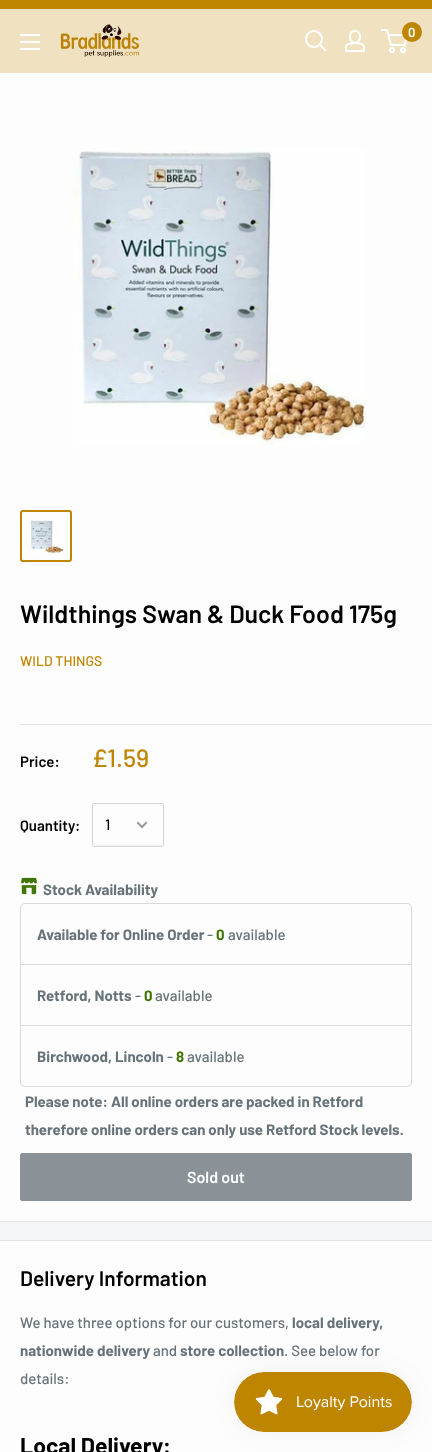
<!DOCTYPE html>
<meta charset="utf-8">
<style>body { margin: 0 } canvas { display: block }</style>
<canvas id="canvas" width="432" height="1452"></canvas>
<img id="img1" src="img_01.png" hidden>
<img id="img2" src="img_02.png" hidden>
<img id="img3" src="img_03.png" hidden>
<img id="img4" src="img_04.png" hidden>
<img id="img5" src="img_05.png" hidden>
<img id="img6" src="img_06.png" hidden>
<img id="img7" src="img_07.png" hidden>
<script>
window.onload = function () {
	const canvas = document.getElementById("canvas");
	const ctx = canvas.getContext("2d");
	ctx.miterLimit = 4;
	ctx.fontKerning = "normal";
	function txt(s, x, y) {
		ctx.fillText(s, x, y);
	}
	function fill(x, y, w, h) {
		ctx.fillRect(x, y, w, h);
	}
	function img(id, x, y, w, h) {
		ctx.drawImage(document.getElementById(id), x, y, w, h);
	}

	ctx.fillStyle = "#F3F5F6";
	fill(0, 0, 432, 1452);
	ctx.fillStyle = "#BE8500";
	fill(0, 0, 432, 9);
	ctx.fillStyle = "#F0E1C0";
	fill(0, 9, 432, 64);
	img("img1", 60, 22, 80, 36);
	ctx.beginPath();
	ctx.moveTo(325, 50);
	ctx.lineTo(319.5, 44.5);
	ctx.strokeStyle = "#FFFFFF";
	ctx.lineWidth = 2.1;
	ctx.lineCap = "square";
	ctx.stroke();
	ctx.beginPath();
	ctx.arc(314, 39, 8, 0, Math.PI * 2);
	ctx.stroke();
	img("img2", 345, 30, 20, 22);
	ctx.beginPath();
	ctx.arc(392, 50, 2, 0, Math.PI * 2);
	ctx.lineWidth = 2;
	ctx.stroke();
	ctx.beginPath();
	ctx.arc(403, 50, 2, 0, Math.PI * 2);
	ctx.stroke();
	ctx.beginPath();
	ctx.moveTo(388.5, 35);
	ctx.lineTo(406.5, 35);
	ctx.lineTo(405, 45);
	ctx.lineTo(391, 45);
	ctx.lineTo(387, 30);
	ctx.lineTo(381, 30);
	ctx.lineCap = "butt";
	ctx.stroke();
	ctx.fillStyle = "#BE8500";
	ctx.beginPath();
	ctx.arc(412, 32, 10, 0, Math.PI * 2);
	ctx.fill();
	img("img3", 20, 34, 20, 16);
	ctx.fillStyle = "#FDFDFD";
	fill(0, 73, 432, 1148);
	img("img4", 73, 147, 293, 299);
	ctx.beginPath();
	ctx.roundRect(21, 511, 50, 50, 2);
	ctx.strokeStyle = "#BE8500";
	ctx.stroke();
	img("img5", 30, 520, 33, 34);
	ctx.fillStyle = "#E1E3E4";
	fill(0, 1221, 432, 1);
	fill(20, 724, 412, 1);
	ctx.fillStyle = "#F1F1F2";
	ctx.beginPath();
	ctx.moveTo(93, 844);
	ctx.bezierCurveTo(93, 845, 93, 846, 94, 846);
	ctx.lineTo(151, 846);
	ctx.bezierCurveTo(154, 846, 163, 849, 163, 844);
	ctx.lineTo(162, 845);
	ctx.lineTo(98, 845);
	ctx.bezierCurveTo(97, 845, 94, 846, 93, 844);
	ctx.closePath();
	ctx.fill();
	ctx.beginPath();
	ctx.roundRect(92.5, 803.5, 71, 43, 1.5);
	ctx.strokeStyle = "#D4D6D8";
	ctx.lineWidth = 1;
	ctx.stroke();
	ctx.beginPath();
	ctx.moveTo(146, 823);
	ctx.lineTo(142, 827);
	ctx.lineTo(138, 823);
	ctx.strokeStyle = "#949CA1";
	ctx.lineWidth = 2;
	ctx.lineCap = "square";
	ctx.stroke();
	img("img6", 21, 877, 16, 18);
	ctx.beginPath();
	ctx.roundRect(20.5, 903.5, 391, 183, 4.5);
	ctx.strokeStyle = "#D9D9D9";
	ctx.lineWidth = 1;
	ctx.stroke();
	ctx.fillStyle = "#D9D9D9";
	fill(21, 964, 390, 1);
	fill(21, 1025, 390, 1);
	ctx.fillStyle = "#8A9297";
	ctx.beginPath();
	ctx.roundRect(20.5, 1153.5, 391, 47, 1.5);
	ctx.fill();
	ctx.strokeStyle = "#8A9297";
	ctx.stroke();
	ctx.fillStyle = "#FDFDFD";
	fill(0, 1241, 432, 211);
	ctx.fillStyle = "#E1E3E4";
	fill(0, 1240, 432, 1);
	ctx.fillStyle = "rgba(0, 0, 0, 0.05)";
	ctx.filter = "blur(12.5px)";
	ctx.beginPath();
	ctx.roundRect(234, 1372, 178, 60, 30);
	ctx.fill();
	ctx.filter = "none";
	img("img7", 234, 1372, 178, 60);
	ctx.font = "600 13px Barlow";
	ctx.fillStyle = "#FFFFFF";
	txt("0", 408, 37);
	ctx.font = "600 25px Barlow";
	ctx.fillStyle = "#000000";
	txt("Wildthings Swan & Duck Food 175g", 20, 623);
	ctx.font = "500 14px Barlow";
	ctx.fillStyle = "#BE8500";
	txt("WILD THINGS", 20, 666);
	ctx.font = "600 15px Barlow";
	ctx.fillStyle = "#000000";
	txt("Price:", 20, 767);
	ctx.font = "500 25px Barlow";
	ctx.fillStyle = "#BE8500";
	txt("£1.59", 92, 767);
	ctx.font = "600 15px Barlow";
	ctx.fillStyle = "#000000";
	txt("Quantity:", 20, 831);
	ctx.font = "500 15px Barlow";
	txt("1", 105, 830);
	ctx.font = "bold 15px Barlow";
	ctx.fillStyle = "#677279";
	txt("Stock Availability", 43, 895);
	txt("Available for Online Order", 37, 940);
	ctx.font = "500 15px Barlow";
	txt("-", 207, 940);
	ctx.font = "bold 15px Barlow";
	ctx.fillStyle = "#417505";
	txt("0", 216, 940);
	ctx.font = "500 15px Barlow";
	ctx.fillStyle = "#677279";
	txt("available", 228, 940);
	ctx.font = "bold 15px Barlow";
	txt("Retford, Notts", 37, 1001);
	ctx.font = "500 15px Barlow";
	txt("-", 135, 1001);
	ctx.font = "bold 15px Barlow";
	ctx.fillStyle = "#417505";
	txt("0", 144, 1001);
	ctx.font = "500 15px Barlow";
	ctx.fillStyle = "#677279";
	txt("available", 155, 1001);
	ctx.font = "bold 15px Barlow";
	txt("Birchwood, Lincoln", 37, 1062);
	ctx.font = "500 15px Barlow";
	txt("-", 167, 1062);
	ctx.font = "bold 15px Barlow";
	ctx.fillStyle = "#417505";
	txt("8", 176, 1062);
	ctx.font = "500 15px Barlow";
	ctx.fillStyle = "#677279";
	txt("available", 187, 1062);
	ctx.font = "bold 15px Barlow";
	txt("Please note: All online orders are packed in Retford", 25, 1107);
	txt("therefore online orders can only use Retford Stock levels.", 25, 1135);
	ctx.font = "600 16px Barlow";
	ctx.fillStyle = "#FFFFFF";
	txt("Sold out", 187, 1183);
	ctx.font = "600 21px Barlow";
	ctx.fillStyle = "#000000";
	txt("Delivery Information", 20, 1286);
	ctx.font = "500 15px Barlow";
	ctx.fillStyle = "#677279";
	txt("We have three options for our customers,", 20, 1328);
	ctx.font = "bold 15px Barlow";
	txt("local delivery,", 292, 1328);
	txt("nationwide delivery", 20, 1356);
	ctx.font = "500 15px Barlow";
	txt("and", 153, 1356);
	ctx.font = "bold 15px Barlow";
	txt("store collection", 180, 1356);
	ctx.font = "500 15px Barlow";
	txt(". See below for", 284, 1356);
	txt("details:", 20, 1384);
	ctx.font = "bold 23px Barlow";
	ctx.fillStyle = "#000000";
	txt("Local Delivery:", 20, 1454);
};
</script>
